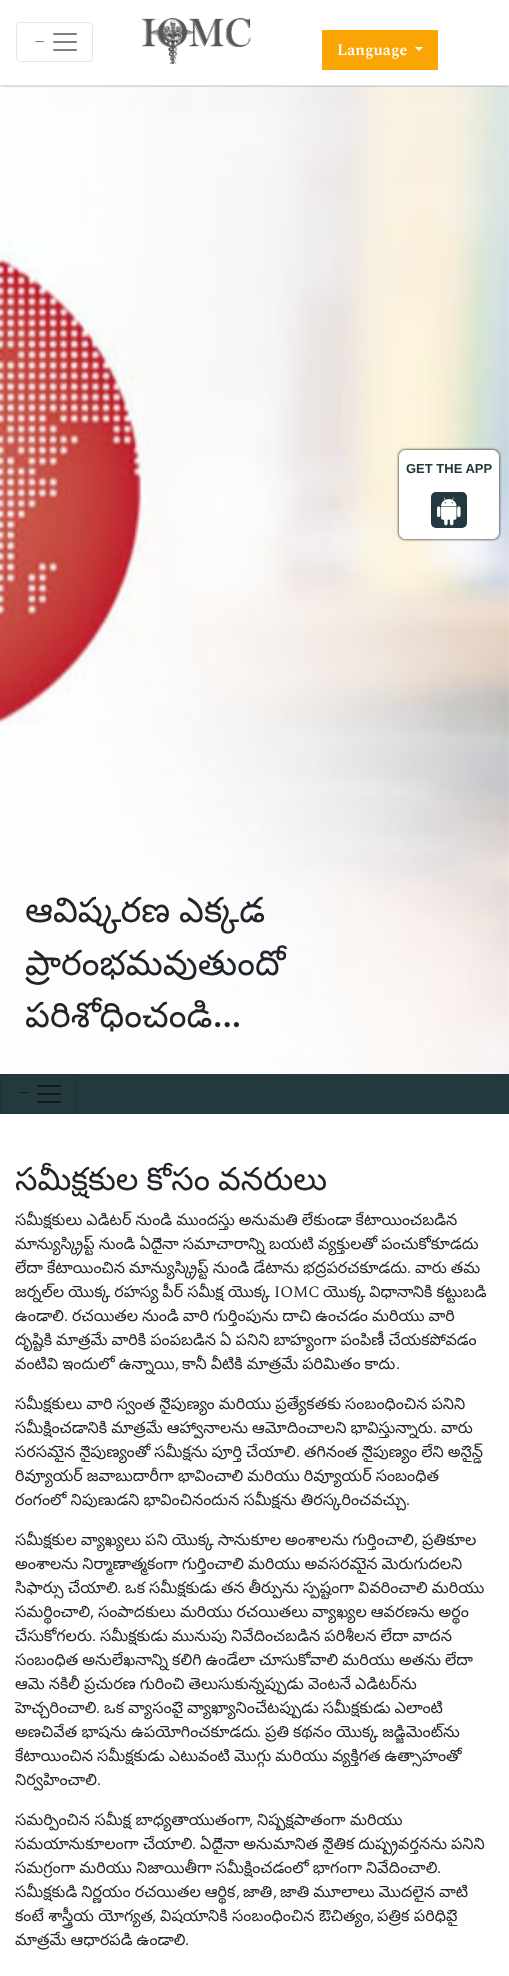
<!DOCTYPE html>
<meta charset="utf-8">
<style>body { margin: 0 } canvas { display: block }</style>
<canvas id="canvas" width="509" height="1976"></canvas>
<img id="img1" src="img_01.png" hidden>
<img id="img2" src="img_02.png" hidden>
<img id="img3" src="img_04.png" hidden>
<img id="img4" src="img_03.png" hidden>
<img id="img5" src="img_05.png" hidden>
<script>
window.onload = function () {
	const canvas = document.getElementById("canvas");
	const ctx = canvas.getContext("2d");
	ctx.miterLimit = 4;
	ctx.fontKerning = "normal";
	function txt(s, x, y) {
		ctx.fillText(s, x, y);
	}
	function fill(x, y, w, h) {
		ctx.fillRect(x, y, w, h);
	}
	function round(x, y, w, h, r) {
		ctx.beginPath();
		ctx.roundRect(x, y, w, h, r);
		ctx.fill();
	}
	function img(id, x, y, w, h) {
		ctx.drawImage(document.getElementById(id), x, y, w, h);
	}

	ctx.fillStyle = "#FFFFFF";
	fill(0, 0, 509, 1976);
	ctx.save();
	ctx.beginPath();
	ctx.rect(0, 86, 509, 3);
	ctx.clip();
	ctx.fillStyle = "rgba(0, 0, 0, 0.12)";
	ctx.filter = "blur(2.5px)";
	ctx.beginPath();
	ctx.rect(0, 1, 509, 86);
	ctx.fill();
	ctx.filter = "none";
	ctx.fillStyle = "rgba(0, 0, 0, 0.14)";
	ctx.filter = "blur(1px)";
	ctx.beginPath();
	ctx.rect(0, 2, 509, 86);
	ctx.fill();
	ctx.filter = "none";
	ctx.restore();
	ctx.save();
	ctx.beginPath();
	ctx.rect(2, 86, 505, 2);
	ctx.clip();
	ctx.fillStyle = "rgba(0, 0, 0, 0.2)";
	ctx.filter = "blur(0.5px)";
	ctx.beginPath();
	ctx.rect(2, 5, 505, 82);
	ctx.fill();
	ctx.filter = "none";
	ctx.restore();
	ctx.fillStyle = "#DEE2E6";
	fill(0, 85, 509, 1);
	ctx.beginPath();
	ctx.roundRect(16.5, 22.5, 76, 39, 3.5);
	ctx.strokeStyle = "#E6E6E6";
	ctx.stroke();
	img("img1", 53, 33, 24, 18);
	img("img2", 141, 17, 110, 47);
	ctx.fillStyle = "#FBA405";
	fill(322, 30, 116, 40);
	ctx.fillStyle = "#FFFFFF";
	ctx.beginPath();
	ctx.moveTo(415, 47);
	ctx.lineTo(423, 47);
	ctx.lineTo(419, 51);
	ctx.closePath();
	ctx.fill();
	img("img3", 0, 86, 509, 988);
	ctx.fillStyle = "#000000";
	ctx.filter = "blur(1.5px)";
	ctx.beginPath();
	ctx.roundRect(399, 450, 100, 89, 6);
	ctx.fill();
	ctx.filter = "none";
	ctx.fillStyle = "#FFFFFF";
	ctx.beginPath();
	ctx.roundRect(399.5, 450.5, 99, 88, 5.5);
	ctx.fill();
	ctx.strokeStyle = "#FFFFFF";
	ctx.stroke();
	ctx.fillStyle = "#23393D";
	round(431, 492, 36, 36, 5);
	img("img4", 437, 497, 24, 29);
	fill(0, 1074, 509, 40);
	ctx.beginPath();
	ctx.roundRect(0.5, 1074.5, 76, 39, 3.5);
	ctx.strokeStyle = "#203337";
	ctx.stroke();
	img("img5", 37, 1085, 24, 18);
	ctx.font = "bold 20px Spectral";
	ctx.fillStyle = "#808080";
	txt("−", 34, 47);
	ctx.font = "600 16px Spectral";
	ctx.fillStyle = "#FFFFFF";
	txt("Language", 337, 55);
	ctx.font = "bold 13px Liberation Sans";
	ctx.fillStyle = "#23393D";
	txt("GET THE APP", 406, 473);
	ctx.wordSpacing = "-1px";
	ctx.font = "35px Noto Sans Telugu";
	ctx.fillStyle = "#212529";
	txt("ఆవిష్కరణ ఎక్కడ", 25, 922);
	ctx.wordSpacing = "0px";
	txt("ప్రారంభమవుతుందో", 25, 975);
	txt("పరిశోధించండి", 25, 1027);
	ctx.font = "bold 35px Spectral";
	txt("...", 213, 1027);
	ctx.font = "bold 20px Spectral";
	ctx.fillStyle = "#121D1F";
	txt("−", 18, 1098);
	ctx.wordSpacing = "-1px";
	ctx.font = "32px Noto Sans Telugu";
	ctx.fillStyle = "#212529";
	txt("సమీక్షకుల కోసం వనరులు", 15, 1190);
	ctx.wordSpacing = "-0.5px";
	ctx.font = "16px Noto Sans Telugu";
	txt("సమీక్షకులు ఎడిటర్ నుండి ముందస్తు అనుమతి లేకుండా కేటాయించబడిన", 15, 1225);
	txt("మాన్యుస్క్రిప్ట్ నుండి ఏదైనా సమాచారాన్ని బయటి వ్యక్తులతో పంచుకోకూడదు", 15, 1249);
	txt("లేదా కేటాయించిన మాన్యుస్క్రిప్ట్ నుండి డేటాను భద్రపరచకూడదు", 15, 1273);
	ctx.wordSpacing = "0px";
	ctx.font = "16px Spectral";
	txt(".", 407, 1273);
	ctx.wordSpacing = "-0.5px";
	ctx.font = "16px Noto Sans Telugu";
	txt("వారు తమ", 415, 1273);
	txt("జర్నల్‌ల యొక్క రహస్య పీర్ సమీక్ష యొక్క", 15, 1297);
	ctx.wordSpacing = "0px";
	ctx.font = "16px Spectral";
	txt("IOMC", 274, 1297);
	ctx.wordSpacing = "-0.5px";
	ctx.font = "16px Noto Sans Telugu";
	txt("యొక్క విధానానికి కట్టుబడి", 323, 1297);
	ctx.wordSpacing = "0px";
	txt("ఉండాలి", 15, 1321);
	ctx.font = "16px Spectral";
	txt(".", 64, 1321);
	ctx.wordSpacing = "-0.5px";
	ctx.font = "16px Noto Sans Telugu";
	txt("రచయితల నుండి వారి గుర్తింపును దాచి ఉంచడం మరియు వారి", 72, 1321);
	txt("దృష్టికి మాత్రమే వారికి పంపబడిన ఏ పనిని బాహ్యంగా పంపిణీ చేయకపోవడం", 15, 1345);
	txt("వంటివి ఇందులో ఉన్నాయి", 15, 1369);
	ctx.wordSpacing = "0px";
	ctx.font = "16px Spectral";
	txt(",", 175, 1369);
	ctx.wordSpacing = "-0.5px";
	ctx.font = "16px Noto Sans Telugu";
	txt("కానీ వీటికి మాత్రమే పరిమితం కాదు", 182, 1369);
	ctx.wordSpacing = "0px";
	ctx.font = "16px Spectral";
	txt(".", 396, 1369);
	ctx.wordSpacing = "-0.5px";
	ctx.font = "16px Noto Sans Telugu";
	txt("సమీక్షకులు వారి స్వంత నైపుణ్యం మరియు ప్రత్యేకతకు సంబంధించిన పనిని", 15, 1409);
	txt("సమీక్షించడానికి మాత్రమే ఆహ్వానాలను ఆమోదించాలని భావిస్తున్నారు", 15, 1433);
	ctx.wordSpacing = "0px";
	ctx.font = "16px Spectral";
	txt(".", 433, 1433);
	ctx.font = "16px Noto Sans Telugu";
	txt("వారు", 441, 1433);
	ctx.wordSpacing = "-0.5px";
	txt("సరసమైన నైపుణ్యంతో సమీక్షను పూర్తి చేయాలి", 15, 1457);
	ctx.wordSpacing = "0px";
	ctx.font = "16px Spectral";
	txt(".", 296, 1457);
	ctx.wordSpacing = "-0.5px";
	ctx.font = "16px Noto Sans Telugu";
	txt("తగినంత నైపుణ్యం లేని అసైన్డ్", 304, 1457);
	txt("రివ్యూయర్ జవాబుదారీగా భావించాలి మరియు రివ్యూయర్ సంబంధిత", 15, 1481);
	txt("రంగంలో నిపుణుడని భావించినందున సమీక్షను తిరస్కరించవచ్చు", 15, 1505);
	ctx.wordSpacing = "0px";
	ctx.font = "16px Spectral";
	txt(".", 406, 1505);
	ctx.wordSpacing = "-0.5px";
	ctx.font = "16px Noto Sans Telugu";
	txt("సమీక్షకుల వ్యాఖ్యలు పని యొక్క సానుకూల అంశాలను గుర్తించాలి", 15, 1545);
	ctx.wordSpacing = "0px";
	ctx.font = "16px Spectral";
	txt(",", 414, 1545);
	ctx.font = "16px Noto Sans Telugu";
	txt("ప్రతికూల", 422, 1545);
	ctx.wordSpacing = "-0.5px";
	txt("అంశాలను నిర్మాణాత్మకంగా గుర్తించాలి మరియు అవసరమైన మెరుగుదలని", 15, 1569);
	ctx.wordSpacing = "0px";
	txt("సిఫార్సు చేయాలి", 15, 1593);
	ctx.font = "16px Spectral";
	txt(".", 117, 1593);
	ctx.wordSpacing = "-0.5px";
	ctx.font = "16px Noto Sans Telugu";
	txt("ఒక సమీక్షకుడు తన తీర్పును స్పష్టంగా వివరించాలి మరియు", 125, 1593);
	ctx.wordSpacing = "0px";
	txt("సమర్థించాలి", 15, 1617);
	ctx.font = "16px Spectral";
	txt(",", 90, 1617);
	ctx.wordSpacing = "-0.5px";
	ctx.font = "16px Noto Sans Telugu";
	txt("సంపాదకులు మరియు రచయితలు వ్యాఖ్యల ఆవరణను అర్థం", 98, 1617);
	ctx.wordSpacing = "0px";
	txt("చేసుకోగలరు", 15, 1641);
	ctx.font = "16px Spectral";
	txt(".", 92, 1641);
	ctx.wordSpacing = "-0.5px";
	ctx.font = "16px Noto Sans Telugu";
	txt("సమీక్షకుడు మునుపు నివేదించబడిన పరిశీలన లేదా వాదన", 100, 1641);
	txt("సంబంధిత అనులేఖనాన్ని కలిగి ఉండేలా చూసుకోవాలి మరియు అతను లేదా", 15, 1665);
	txt("ఆమె నకిలీ ప్రచురణ గురించి తెలుసుకున్నప్పుడు వెంటనే ఎడిటర్‌ను", 15, 1689);
	ctx.wordSpacing = "0px";
	txt("హెచ్చరించాలి", 15, 1713);
	ctx.font = "16px Spectral";
	txt(".", 96, 1713);
	ctx.wordSpacing = "-0.5px";
	ctx.font = "16px Noto Sans Telugu";
	txt("ఒక వ్యాసంపై వ్యాఖ్యానించేటప్పుడు సమీక్షకుడు ఎలాంటి", 104, 1713);
	ctx.wordSpacing = "0px";
	txt("అణచివేత భాషను ఉపయోగించకూడదు", 15, 1737);
	ctx.font = "16px Spectral";
	txt(".", 257, 1737);
	ctx.wordSpacing = "-0.5px";
	ctx.font = "16px Noto Sans Telugu";
	txt("ప్రతి కథనం యొక్క జడ్జిమెంట్‌ను", 265, 1737);
	txt("కేటాయించిన సమీక్షకుడు ఎటువంటి మొగ్గు మరియు వ్యక్తిగత ఉత్సాహంతో", 15, 1761);
	ctx.wordSpacing = "0px";
	txt("నిర్వహించాలి", 15, 1785);
	ctx.font = "16px Spectral";
	txt(".", 97, 1785);
	ctx.font = "16px Noto Sans Telugu";
	txt("సమర్పించిన సమీక్ష బాధ్యతాయుతంగా", 15, 1825);
	ctx.font = "16px Spectral";
	txt(",", 249, 1825);
	ctx.font = "16px Noto Sans Telugu";
	txt("నిష్పక్షపాతంగా మరియు", 257, 1825);
	txt("సమయానుకూలంగా చేయాలి", 15, 1849);
	ctx.font = "16px Spectral";
	txt(".", 192, 1849);
	ctx.wordSpacing = "-0.5px";
	ctx.font = "16px Noto Sans Telugu";
	txt("ఏదైనా అనుమానిత నైతిక దుష్ప్రవర్తనను పనిని", 200, 1849);
	txt("సమగ్రంగా మరియు నిజాయితీగా సమీక్షించడంలో భాగంగా నివేదించాలి", 15, 1873);
	ctx.wordSpacing = "0px";
	ctx.font = "16px Spectral";
	txt(".", 437, 1873);
	ctx.wordSpacing = "-0.5px";
	ctx.font = "16px Noto Sans Telugu";
	txt("సమీక్షకుడి నిర్ణయం రచయితల ఆర్థిక", 15, 1897);
	ctx.wordSpacing = "0px";
	ctx.font = "16px Spectral";
	txt(",", 236, 1897);
	ctx.font = "16px Noto Sans Telugu";
	txt("జాతి", 243, 1897);
	ctx.font = "16px Spectral";
	txt(",", 273, 1897);
	ctx.wordSpacing = "-0.5px";
	ctx.font = "16px Noto Sans Telugu";
	txt("జాతి మూలాలు మొదలైన వాటి", 280, 1897);
	ctx.wordSpacing = "0px";
	txt("కంటే శాస్త్రీయ యోగ్యత", 15, 1921);
	ctx.font = "16px Spectral";
	txt(",", 152, 1921);
	ctx.font = "16px Noto Sans Telugu";
	txt("విషయానికి సంబంధించిన ఔచిత్యం", 160, 1921);
	ctx.font = "16px Spectral";
	txt(",", 370, 1921);
	ctx.font = "16px Noto Sans Telugu";
	txt("పత్రిక పరిధిపై", 377, 1921);
	ctx.wordSpacing = "-0.5px";
	txt("మాత్రమే ఆధారపడి ఉండాలి", 15, 1945);
	ctx.wordSpacing = "0px";
	ctx.font = "16px Spectral";
	txt(".", 185, 1945);
};
</script>
